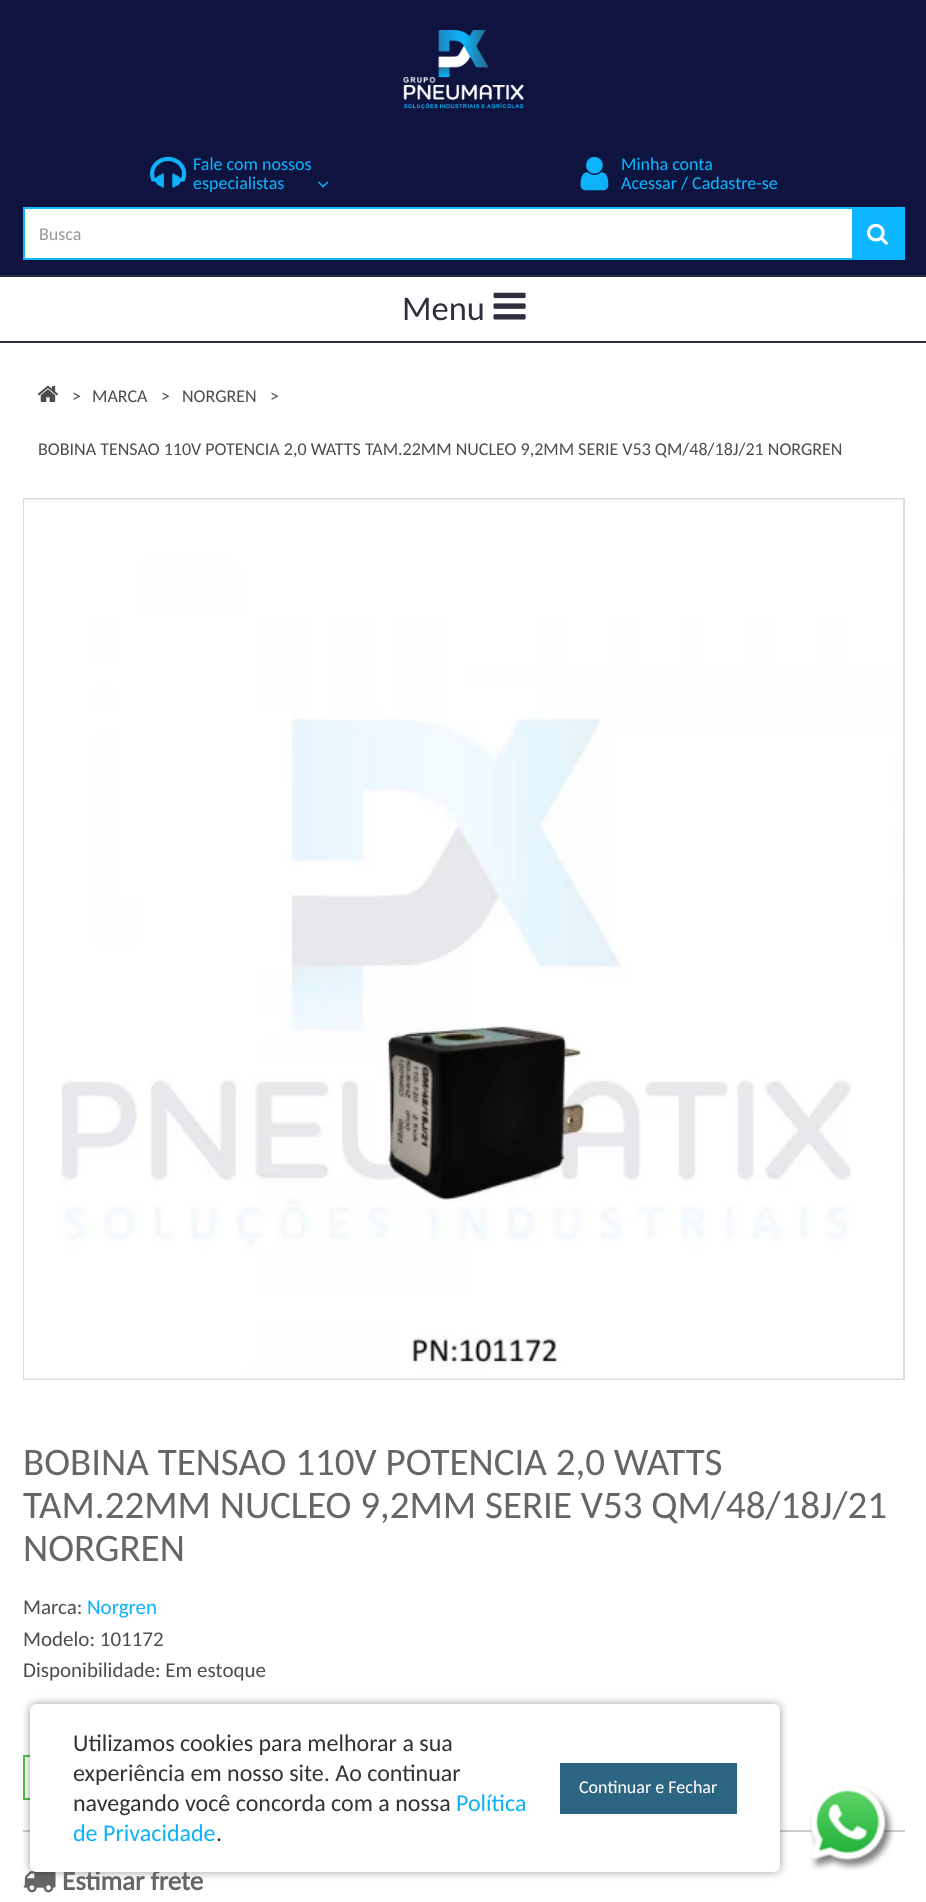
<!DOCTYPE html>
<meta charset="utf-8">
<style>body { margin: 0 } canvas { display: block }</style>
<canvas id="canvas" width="926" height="1902"></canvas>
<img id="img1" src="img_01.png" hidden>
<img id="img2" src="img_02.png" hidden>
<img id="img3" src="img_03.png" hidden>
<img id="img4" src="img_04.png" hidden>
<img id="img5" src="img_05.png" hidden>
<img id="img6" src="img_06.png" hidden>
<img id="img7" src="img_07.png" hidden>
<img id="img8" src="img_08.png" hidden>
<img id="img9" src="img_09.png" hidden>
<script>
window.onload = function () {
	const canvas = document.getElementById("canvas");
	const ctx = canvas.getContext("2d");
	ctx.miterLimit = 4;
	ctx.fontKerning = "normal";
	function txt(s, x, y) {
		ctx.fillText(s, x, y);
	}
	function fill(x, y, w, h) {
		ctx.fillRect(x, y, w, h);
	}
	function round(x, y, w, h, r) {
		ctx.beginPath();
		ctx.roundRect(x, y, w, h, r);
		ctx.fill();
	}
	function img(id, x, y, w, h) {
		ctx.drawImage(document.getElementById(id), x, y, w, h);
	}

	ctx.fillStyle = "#FFFFFF";
	fill(0, 0, 926, 1902);
	ctx.fillStyle = "#0F1340";
	fill(0, 0, 926, 275);
	img("img1", 403, 30, 121, 80);
	img("img2", 150, 156, 37, 32);
	ctx.fillStyle = "#0CB7FF";
	ctx.beginPath();
	ctx.moveTo(327.5, 181.5);
	ctx.lineTo(328.5, 182.5);
	ctx.lineTo(323, 187.5);
	ctx.lineTo(322, 186.5);
	ctx.closePath();
	ctx.fill();
	ctx.beginPath();
	ctx.moveTo(319, 181.5);
	ctx.lineTo(324, 186.5);
	ctx.lineTo(323, 187.5);
	ctx.lineTo(318, 182.5);
	ctx.closePath();
	ctx.fill();
	img("img3", 580, 156, 29, 35);
	ctx.fillStyle = "#FFFFFF";
	fill(25, 209, 827, 49);
	ctx.fillStyle = "#0CB7FF";
	fill(23, 207, 882, 2);
	fill(23, 258, 829, 2);
	fill(23, 207, 2, 53);
	fill(852, 209, 51, 49);
	fill(903, 207, 2, 53);
	fill(852, 258, 53, 2);
	img("img4", 867, 223, 21, 22);
	ctx.fillStyle = "#302D3C";
	fill(0, 275, 926, 2);
	fill(0, 341, 926, 2);
	img("img5", 493, 292, 33, 28);
	img("img6", 37, 385, 21, 17);
	ctx.strokeStyle = "#DDDDDD";
	ctx.lineWidth = 2;
	ctx.strokeRect(24, 499, 880, 880);
	img("img7", 24, 499, 879, 880);
	ctx.strokeStyle = "#4DC247";
	ctx.strokeRect(24, 1756, 196, 43);
	ctx.fillStyle = "#CCCCCC";
	fill(23, 1830, 882, 2);
	img("img8", 23, 1871, 33, 22);
	ctx.fillStyle = "rgba(0, 0, 0, 0.4)";
	ctx.filter = "blur(4.5px)";
	ctx.beginPath();
	ctx.roundRect(30, 1704, 750, 168, 6);
	ctx.fill();
	ctx.filter = "none";
	img("img9", 809, 1785, 86, 86);
	ctx.font = "18px Carlito";
	ctx.fillStyle = "#0CB7FF";
	txt("Fale com nossos", 193, 170);
	txt("especialistas", 193, 189);
	txt("Minha conta", 621, 170);
	txt("Acessar / Cadastre-se", 621, 189);
	ctx.fillStyle = "#999999";
	txt("Busca", 39, 240);
	ctx.font = "34.5px Carlito";
	ctx.fillStyle = "#302D3C";
	txt("Menu", 402, 320);
	ctx.font = "18px Carlito";
	ctx.fillStyle = "#4D4D4D";
	txt(">", 72, 402);
	txt("MARCA", 92, 402);
	txt(">", 161, 402);
	txt("NORGREN", 182, 402);
	txt(">", 270, 402);
	txt("BOBINA TENSAO 110V POTENCIA 2,0 WATTS TAM.22MM NUCLEO 9,2MM SERIE V53 QM/48/18J/21 NORGREN", 38, 455);
	ctx.font = "39px Carlito";
	ctx.fillStyle = "#666666";
	txt("BOBINA TENSAO 110V POTENCIA 2,0 WATTS", 23, 1475);
	txt("TAM.22MM NUCLEO 9,2MM SERIE V53 QM/48/18J/21", 23, 1518);
	txt("NORGREN", 23, 1561);
	ctx.font = "21px Carlito";
	ctx.fillStyle = "#4D4D4D";
	txt("Marca:", 23, 1614);
	ctx.fillStyle = "#0EB2F9";
	txt("Norgren", 87, 1614);
	ctx.fillStyle = "#4D4D4D";
	txt("Modelo: 101172", 23, 1646);
	txt("Disponibilidade: Em estoque", 23, 1677);
	ctx.font = "bold 27px Carlito";
	ctx.fillStyle = "#666666";
	txt("Estimar frete", 62, 1890);
	ctx.fillStyle = "#FFFFFF";
	round(30, 1704, 750, 168, 6);
	ctx.font = "24px Carlito";
	ctx.fillStyle = "#333333";
	txt("Utilizamos cookies para melhorar a sua", 73, 1751);
	txt("experiência em nosso site. Ao continuar", 73, 1781);
	txt("navegando você concorda com a nossa", 73, 1811);
	ctx.fillStyle = "#0EB2F9";
	txt("Política", 456, 1811);
	txt("de Privacidade", 73, 1841);
	ctx.fillStyle = "#333333";
	txt(".", 216, 1841);
	ctx.fillStyle = "#2C6582";
	fill(560, 1763, 177, 51);
	ctx.font = "18px Carlito";
	ctx.fillStyle = "#FFFFFF";
	txt("Continuar e Fechar", 579, 1793);
};
</script>
